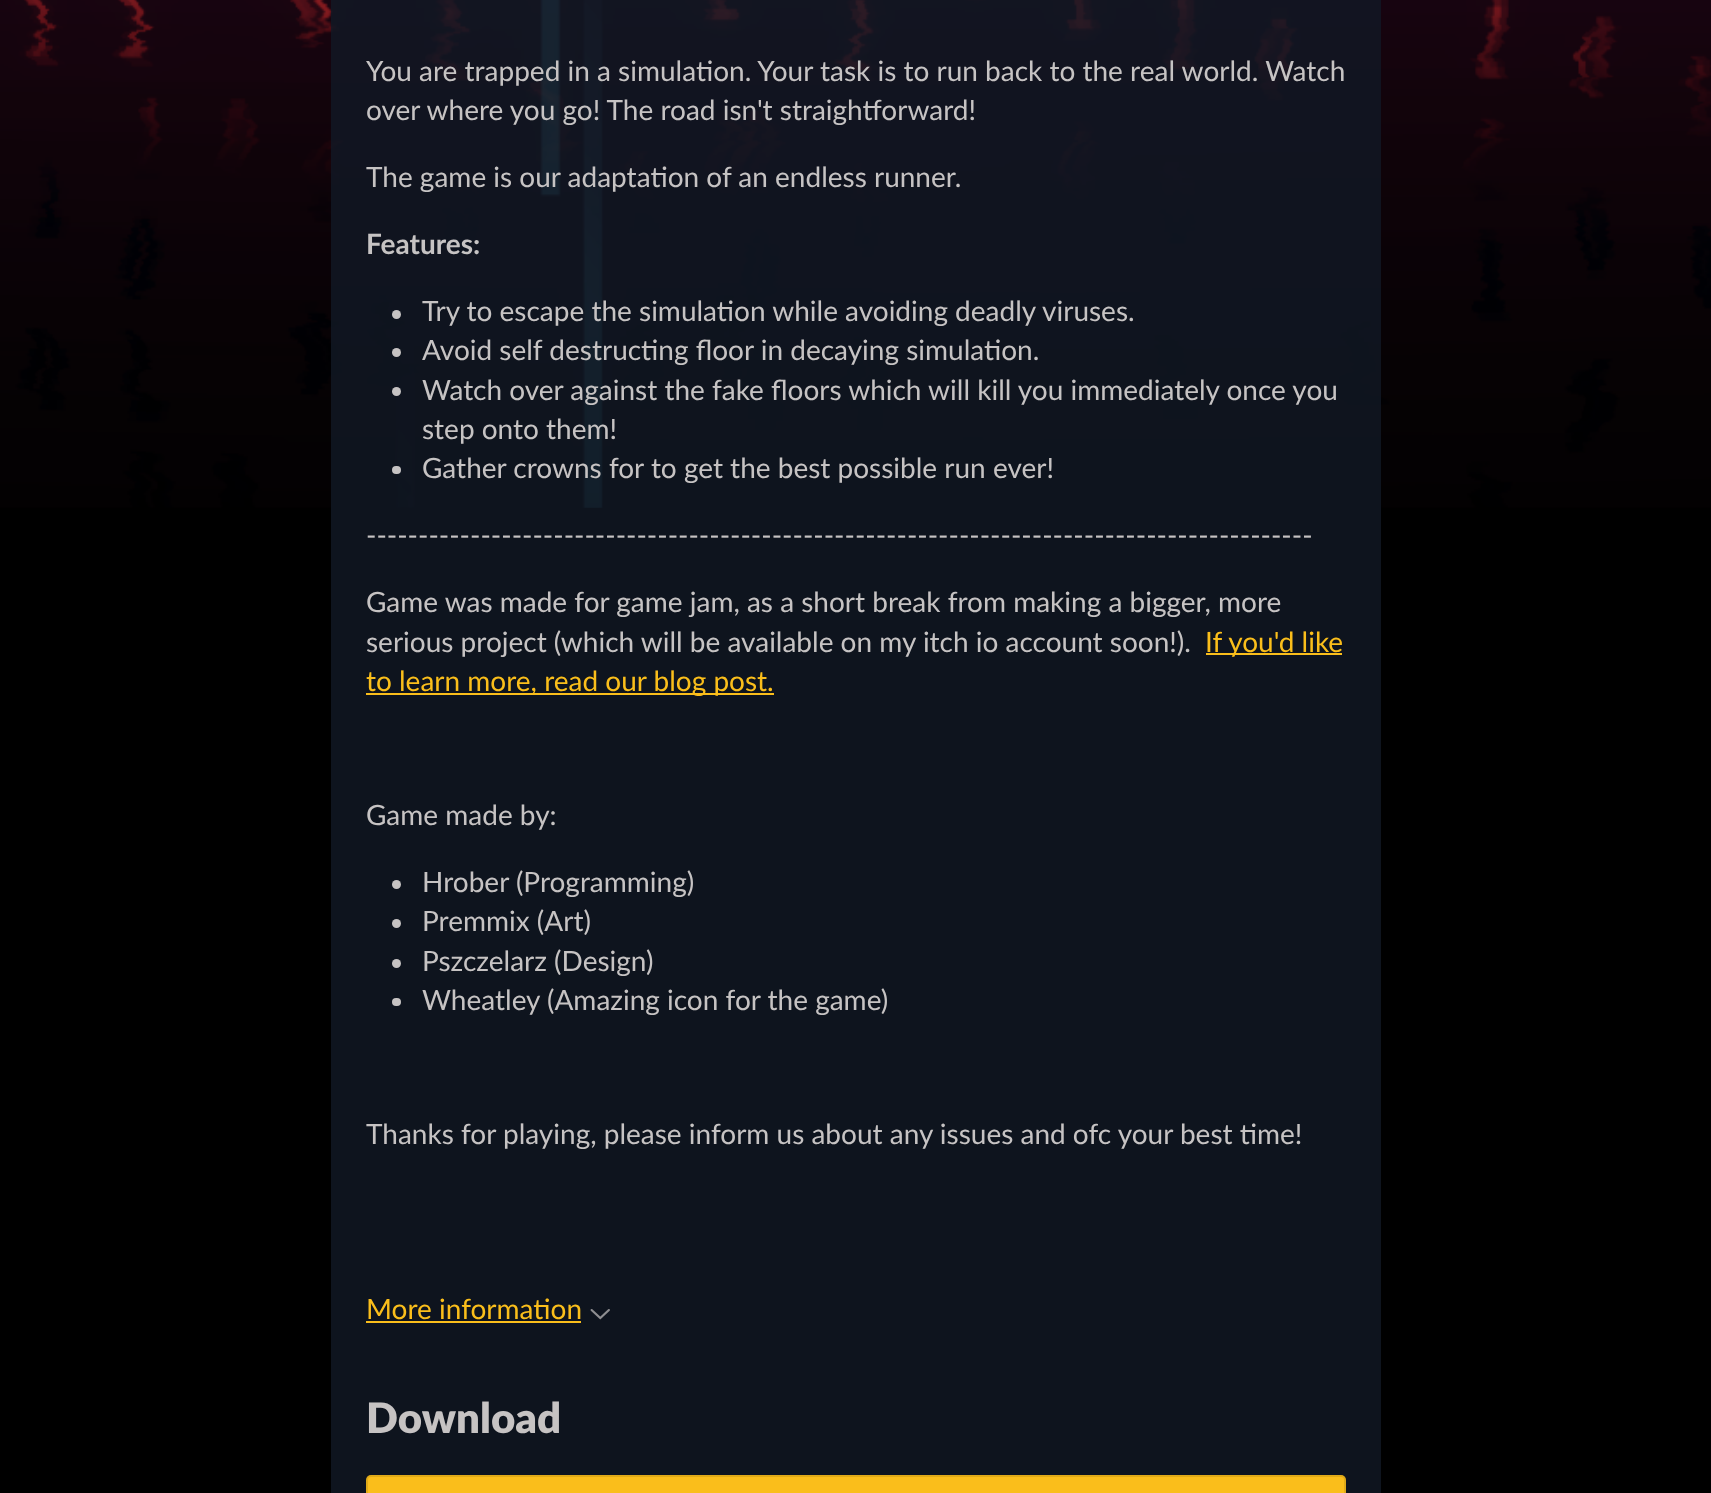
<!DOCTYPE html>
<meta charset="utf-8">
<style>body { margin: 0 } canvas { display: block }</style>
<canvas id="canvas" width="1711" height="1493"></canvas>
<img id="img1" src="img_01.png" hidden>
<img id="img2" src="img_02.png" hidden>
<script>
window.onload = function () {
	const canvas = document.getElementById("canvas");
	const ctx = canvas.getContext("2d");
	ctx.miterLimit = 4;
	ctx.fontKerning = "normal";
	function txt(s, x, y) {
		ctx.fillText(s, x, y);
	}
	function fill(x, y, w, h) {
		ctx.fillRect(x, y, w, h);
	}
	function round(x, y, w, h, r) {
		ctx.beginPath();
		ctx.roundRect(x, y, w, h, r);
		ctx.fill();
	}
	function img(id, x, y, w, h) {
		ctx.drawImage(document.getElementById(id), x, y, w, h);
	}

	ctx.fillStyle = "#000000";
	fill(0, 0, 1711, 1493);
	img("img1", 0, 0, 1711, 508);
	ctx.fillStyle = "rgba(17, 25, 37, 0.8)";
	fill(331, 0, 1050, 1493);
	ctx.fillStyle = "#C6C3C3";
	ctx.beginPath();
	ctx.arc(396.5, 314.5, 4.5, 0, Math.PI * 2);
	ctx.fill();
	ctx.beginPath();
	ctx.arc(396.5, 352.5, 4.5, 0, Math.PI * 2);
	ctx.fill();
	ctx.beginPath();
	ctx.arc(396.5, 391.5, 4.5, 0, Math.PI * 2);
	ctx.fill();
	round(392, 466, 9, 8, 4);
	ctx.fillStyle = "#FABE1B";
	fill(1206, 653, 136, 2);
	fill(366, 693, 408, 2);
	ctx.fillStyle = "#C6C3C3";
	ctx.beginPath();
	ctx.arc(396.5, 884.5, 4.5, 0, Math.PI * 2);
	ctx.fill();
	ctx.beginPath();
	ctx.arc(396.5, 923.5, 4.5, 0, Math.PI * 2);
	ctx.fill();
	ctx.beginPath();
	ctx.arc(396.5, 963.5, 4.5, 0, Math.PI * 2);
	ctx.fill();
	round(392, 998, 9, 8, 4);
	ctx.fillStyle = "#FABE1B";
	fill(366, 1321, 215, 2);
	img("img2", 590, 1309, 20, 11);
	round(366, 1475, 980, 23, 5);
	ctx.beginPath();
	ctx.roundRect(367, 1476, 978, 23, 4);
	ctx.strokeStyle = "rgba(0, 0, 0, 0.1)";
	ctx.lineWidth = 2;
	ctx.stroke();
	ctx.font = "28px Lato";
	ctx.fillStyle = "#C6C3C3";
	txt("You are trapped in a simulation. Your task is to run back to the real world. Watch", 366, 81);
	txt("over where you go! The road isn't straightforward!", 366, 120);
	txt("The game is our adaptation of an endless runner.", 366, 187);
	ctx.font = "bold 28px Lato";
	txt("Features:", 366, 254);
	ctx.font = "28px Lato";
	txt("Try to escape the simulation while avoiding deadly viruses.", 422, 321);
	txt("Avoid self destructing floor in decaying simulation.", 422, 360);
	txt("Watch over against the fake floors which will kill you immediately once you", 422, 400);
	txt("step onto them!", 422, 439);
	txt("Gather crowns for to get the best possible run ever!", 422, 478);
	txt("-------------------------------------------------------------------------------------------", 366, 545);
	txt("Game was made for game jam, as a short break from making a bigger, more", 366, 612);
	txt("serious project (which will be available on my itch io account soon!).", 366, 652);
	ctx.fillStyle = "#FABE1B";
	txt("If you'd like", 1205, 652);
	txt("to learn more, read our blog post.", 366, 691);
	ctx.fillStyle = "#C6C3C3";
	txt("Game made by:", 366, 825);
	txt("Hrober (Programming)", 422, 892);
	txt("Premmix (Art)", 422, 931);
	txt("Pszczelarz (Design)", 422, 971);
	txt("Wheatley (Amazing icon for the game)", 422, 1010);
	txt("Thanks for playing, please inform us about any issues and ofc your best time!", 366, 1144);
	ctx.fillStyle = "#FABE1B";
	txt("More information", 366, 1319);
	ctx.font = "900 42px Lato";
	ctx.fillStyle = "#C6C3C3";
	txt("Download", 366, 1433);
};
</script>
